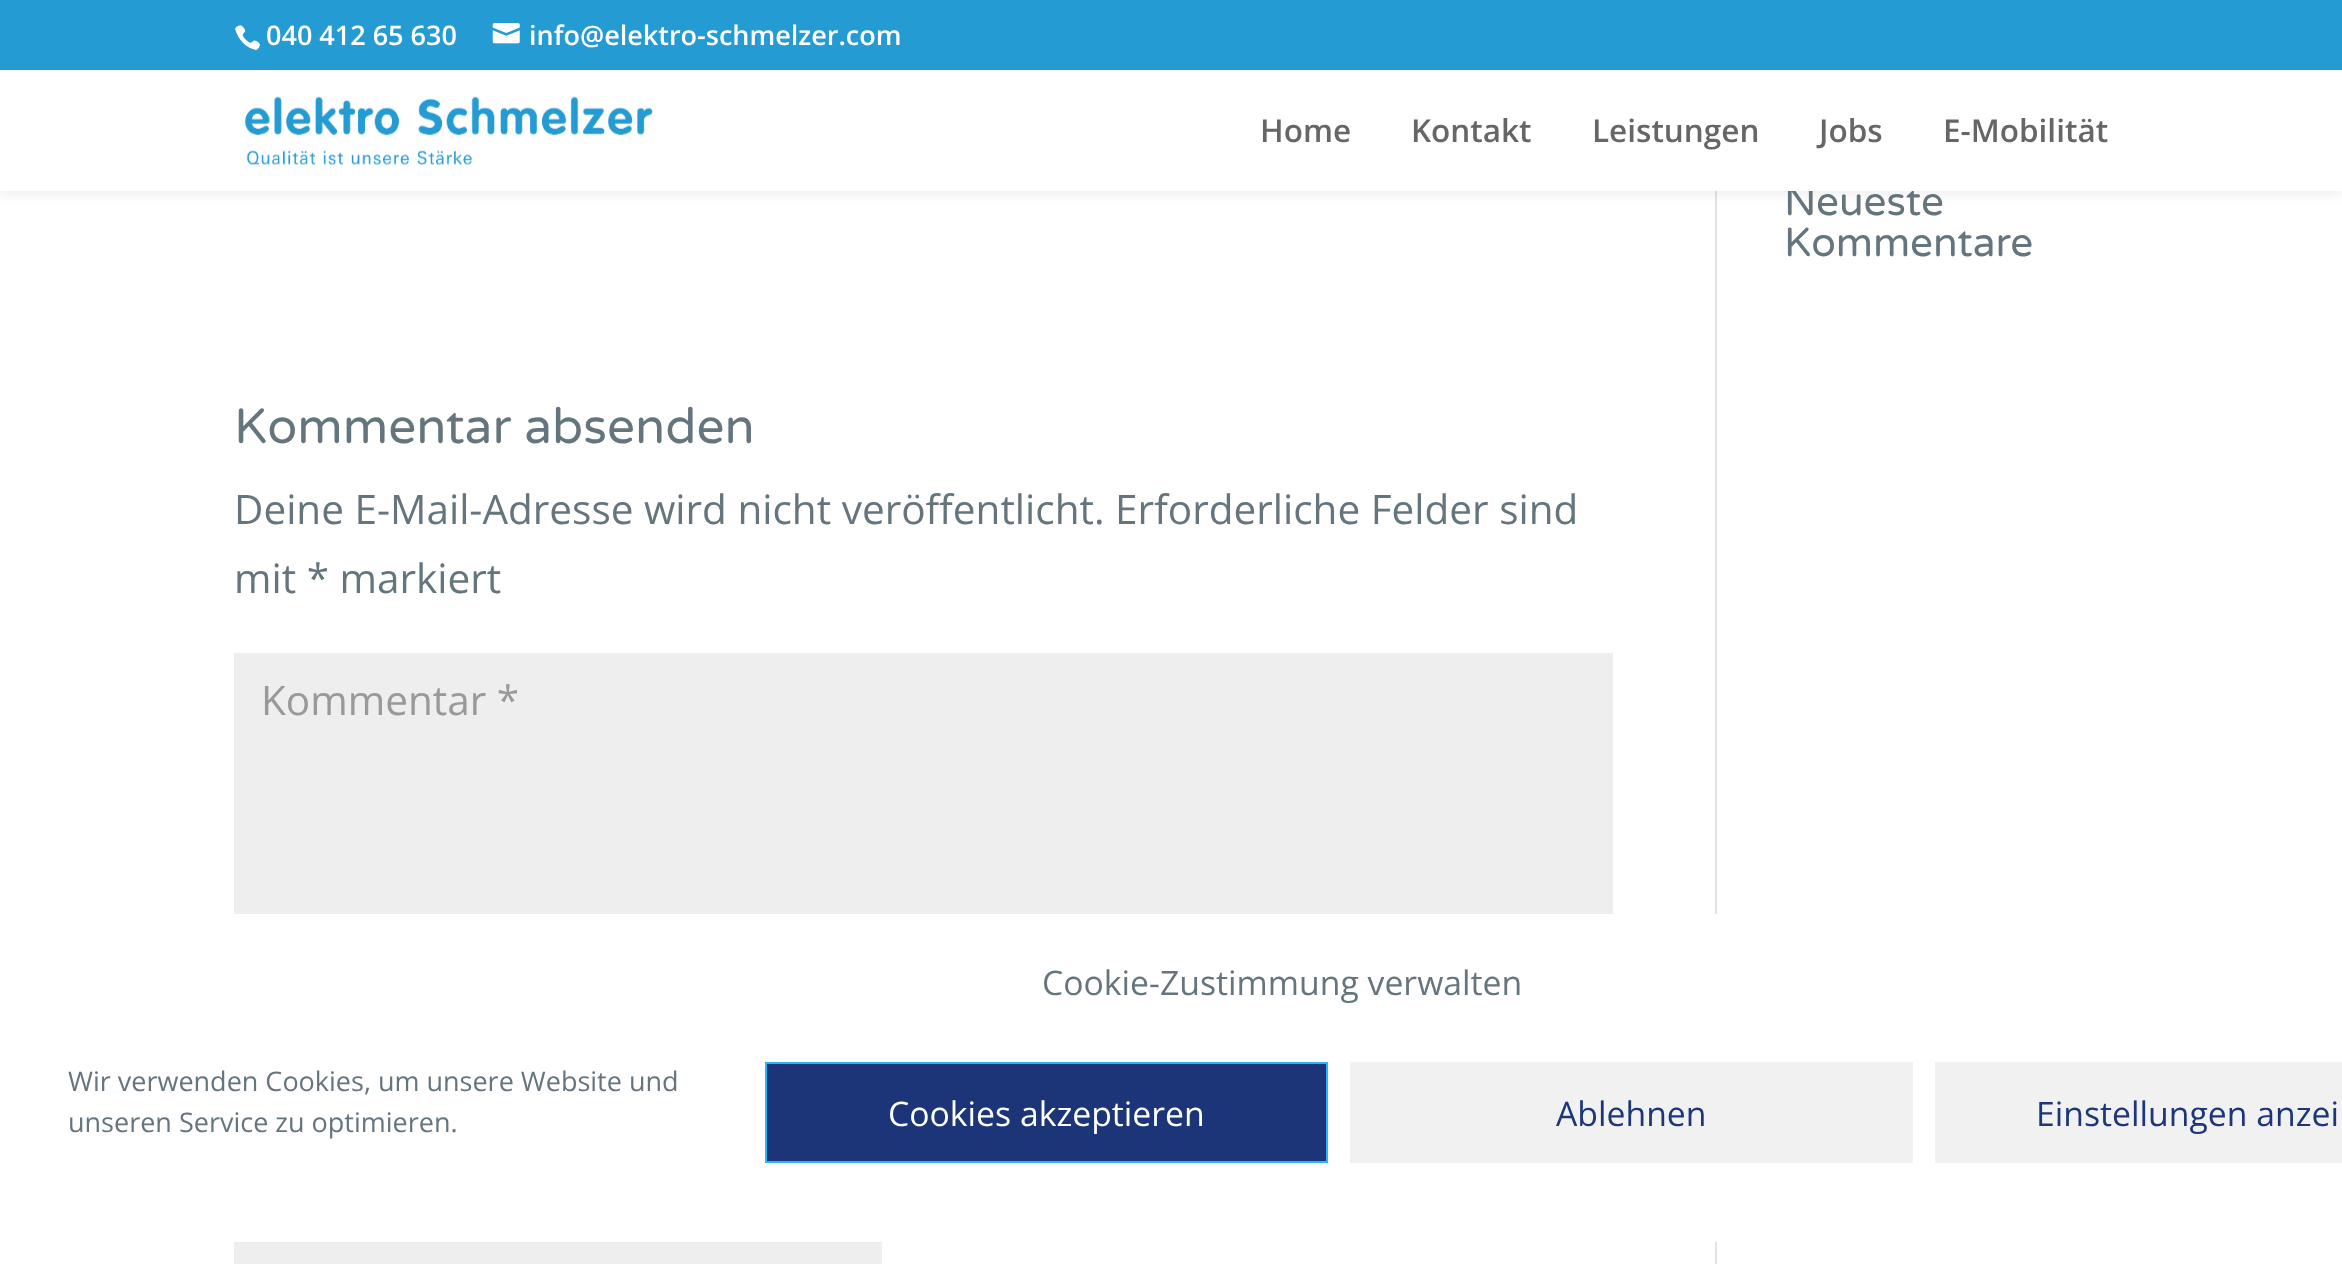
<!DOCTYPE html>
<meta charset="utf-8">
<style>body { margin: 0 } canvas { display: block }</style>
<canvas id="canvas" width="2342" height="1264"></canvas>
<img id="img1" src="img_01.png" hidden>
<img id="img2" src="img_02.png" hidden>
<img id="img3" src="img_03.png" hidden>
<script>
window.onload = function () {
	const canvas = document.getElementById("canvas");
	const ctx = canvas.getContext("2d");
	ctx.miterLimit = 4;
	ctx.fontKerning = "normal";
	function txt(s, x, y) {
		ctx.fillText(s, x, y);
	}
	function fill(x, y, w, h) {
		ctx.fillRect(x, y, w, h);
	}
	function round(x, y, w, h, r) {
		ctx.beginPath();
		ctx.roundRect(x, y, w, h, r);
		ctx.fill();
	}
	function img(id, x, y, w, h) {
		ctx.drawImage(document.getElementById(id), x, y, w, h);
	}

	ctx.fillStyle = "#FFFFFF";
	fill(0, 0, 2342, 1264);
	ctx.fillStyle = "#E2E2E2";
	fill(1715, 191, 2, 1073);
	ctx.fillStyle = "rgba(0, 0, 0, 0.1)";
	ctx.filter = "blur(8px)";
	ctx.beginPath();
	ctx.rect(0, 70, 2342, 121);
	ctx.fill();
	ctx.filter = "none";
	ctx.fillStyle = "#259BD3";
	fill(0, 0, 2342, 70);
	img("img1", 235, 25, 25, 26);
	img("img2", 492, 23, 28, 21);
	ctx.fillStyle = "#EEEEEE";
	fill(234, 653, 1379, 261);
	fill(234, 1242, 648, 22);
	ctx.fillStyle = "#FFFFFF";
	round(23, 914, 2297, 328, 27);
	ctx.fillStyle = "#1C3579";
	ctx.beginPath();
	ctx.rect(766, 1063, 561, 99);
	ctx.fill();
	ctx.strokeStyle = "#29B6F6";
	ctx.lineWidth = 2;
	ctx.stroke();
	ctx.fillStyle = "#F1F1F1";
	fill(1350, 1062, 563, 101);
	fill(1935, 1062, 407, 101);
	ctx.font = "600 27px Open Sans";
	ctx.fillStyle = "#FFFFFF";
	txt("040 412 65 630", 266, 45);
	txt("info@elektro-schmelzer.com", 529, 45);
	ctx.font = "40.5px Varela Round";
	ctx.fillStyle = "#65757E";
	txt("Neueste", 1784, 215);
	ctx.fillStyle = "#FFFFFF";
	fill(0, 70, 2342, 121);
	ctx.font = "600 31.5px Open Sans";
	ctx.fillStyle = "#666666";
	txt("E-Mobilität", 1943, 142);
	txt("Jobs", 1819, 142);
	txt("Leistungen", 1592, 142);
	txt("Kontakt", 1411, 142);
	txt("Home", 1260, 142);
	img("img3", 245, 96, 408, 69);
	ctx.font = "40.5px Varela Round";
	ctx.fillStyle = "#65757E";
	txt("Kommentare", 1784, 256);
	ctx.font = "49.5px Varela Round";
	txt("Kommentar absenden", 234, 443);
	ctx.font = "40.5px Open Sans";
	txt("Deine E-Mail-Adresse wird nicht veröffentlicht. Erforderliche Felder sind", 234, 524);
	txt("mit * markiert", 234, 593);
	ctx.fillStyle = "#999999";
	txt("Kommentar *", 261, 715);
	ctx.font = "33.75px Open Sans";
	ctx.fillStyle = "#65757E";
	txt("Cookie-Zustimmung verwalten", 1042, 995);
	ctx.font = "27px Open Sans";
	txt("Wir verwenden Cookies, um unsere Website und", 68, 1091);
	txt("unseren Service zu optimieren.", 68, 1132);
	ctx.font = "33.75px Open Sans";
	ctx.fillStyle = "#FFFFFF";
	txt("Cookies akzeptieren", 888, 1126);
	ctx.fillStyle = "#1C3679";
	txt("Ablehnen", 1556, 1126);
	txt("Einstellungen anzei", 2036, 1126);
};
</script>
